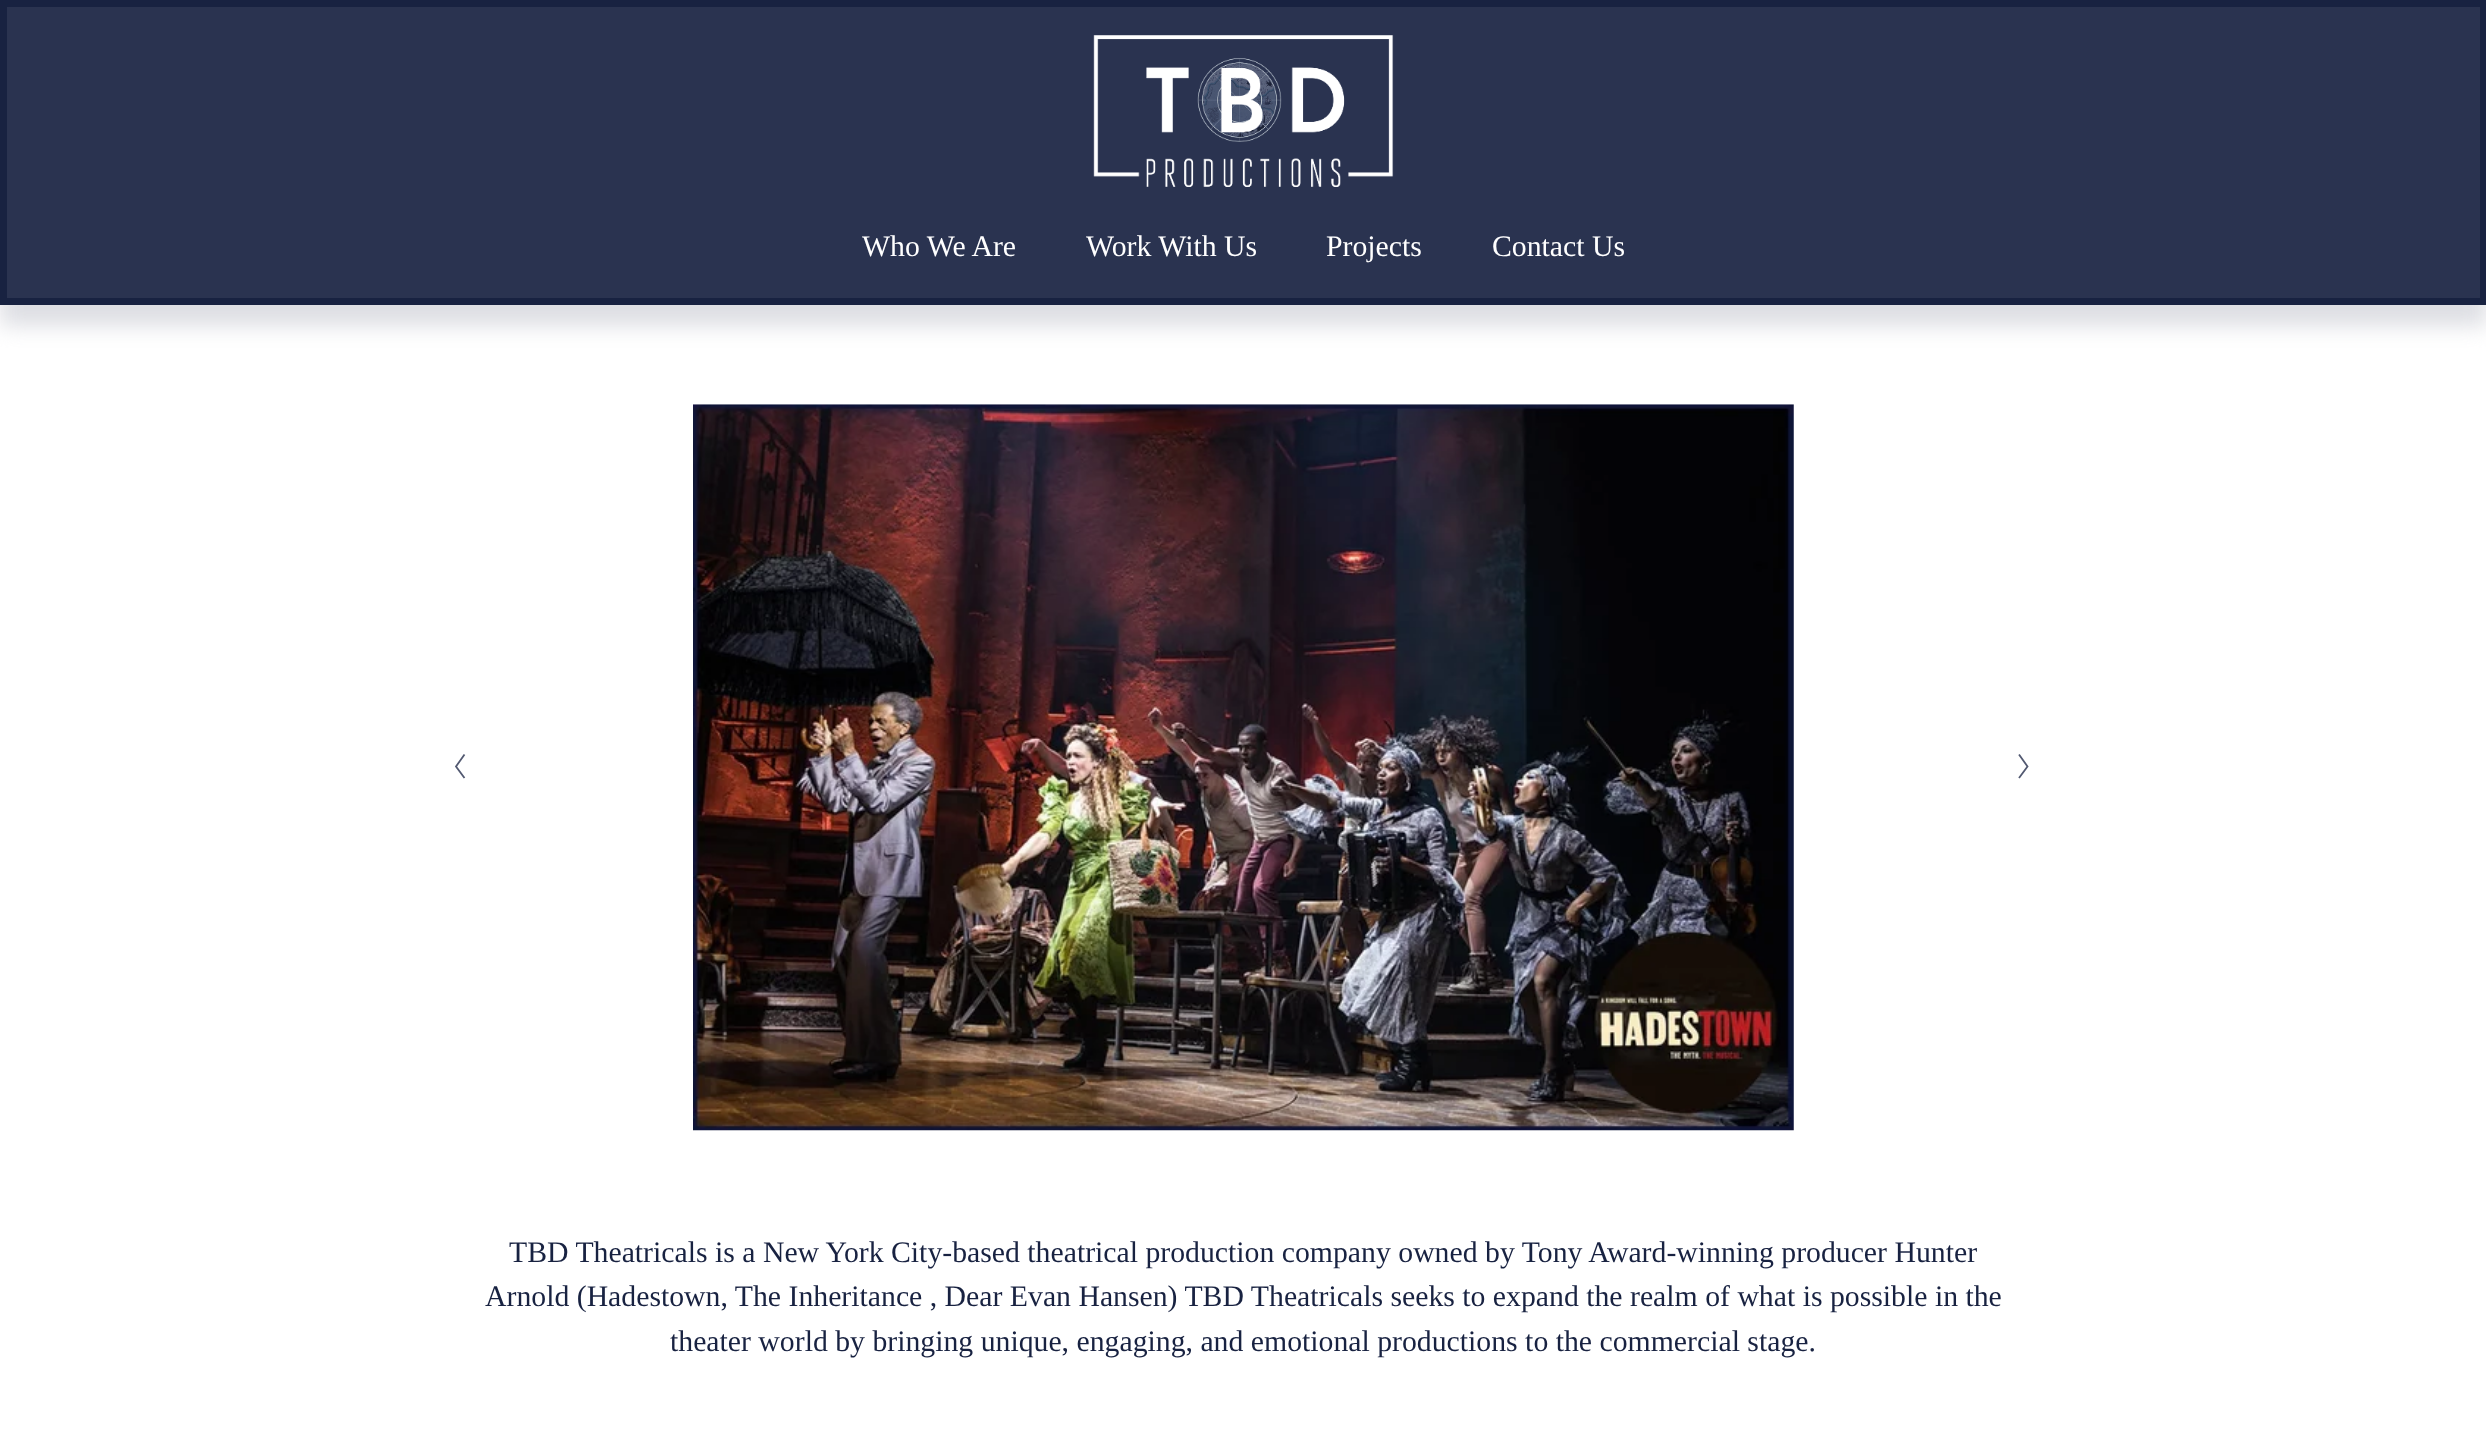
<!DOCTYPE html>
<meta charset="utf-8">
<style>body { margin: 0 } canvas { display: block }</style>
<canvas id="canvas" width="2486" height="1454"></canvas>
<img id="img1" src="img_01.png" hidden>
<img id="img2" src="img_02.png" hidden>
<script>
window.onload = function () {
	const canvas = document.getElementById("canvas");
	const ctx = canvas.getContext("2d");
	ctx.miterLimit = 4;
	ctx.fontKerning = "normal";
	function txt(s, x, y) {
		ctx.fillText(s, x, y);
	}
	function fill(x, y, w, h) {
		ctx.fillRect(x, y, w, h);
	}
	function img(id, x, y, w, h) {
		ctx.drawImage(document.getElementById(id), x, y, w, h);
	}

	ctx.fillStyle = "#FFFFFF";
	fill(0, 0, 2486, 1454);
	ctx.save();
	ctx.beginPath();
	ctx.rect(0, 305, 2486, 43);
	ctx.clip();
	ctx.fillStyle = "#DDDEE3";
	ctx.filter = "blur(10.5px)";
	ctx.beginPath();
	ctx.rect(0, 21, 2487, 305);
	ctx.fill();
	ctx.filter = "none";
	ctx.restore();
	ctx.fillStyle = "rgba(24, 34, 65, 0.92)";
	ctx.beginPath();
	ctx.rect(3.5, 3.5, 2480, 298);
	ctx.fill();
	ctx.strokeStyle = "#182241";
	ctx.lineWidth = 7;
	ctx.stroke();
	img("img1", 1093, 35, 301, 152);
	img("img2", 693, 404, 1101, 727);
	ctx.beginPath();
	ctx.moveTo(464.5, 778);
	ctx.lineTo(456, 766.5);
	ctx.lineTo(464.5, 754.5);
	ctx.strokeStyle = "#525971";
	ctx.lineWidth = 1.8;
	ctx.stroke();
	ctx.beginPath();
	ctx.moveTo(2019, 754.5);
	ctx.lineTo(2027.5, 766.5);
	ctx.lineTo(2019, 778);
	ctx.stroke();
	ctx.font = "29.75px Liberation Serif";
	ctx.fillStyle = "#FFFFFF";
	txt("Who We Are", 862, 256);
	txt("Work With Us", 1086, 256);
	txt("Projects", 1326, 256);
	txt("Contact Us", 1492, 256);
	ctx.fillStyle = "#182241";
	txt("TBD Theatricals is a New York City-based theatrical production company owned by Tony Award-winning producer Hunter", 509, 1262);
	txt("Arnold (Hadestown, The Inheritance , Dear Evan Hansen) TBD Theatricals seeks to expand the realm of what is possible in the", 485, 1306);
	txt("theater world by bringing unique, engaging, and emotional productions to the commercial stage.", 670, 1351);
};
</script>
